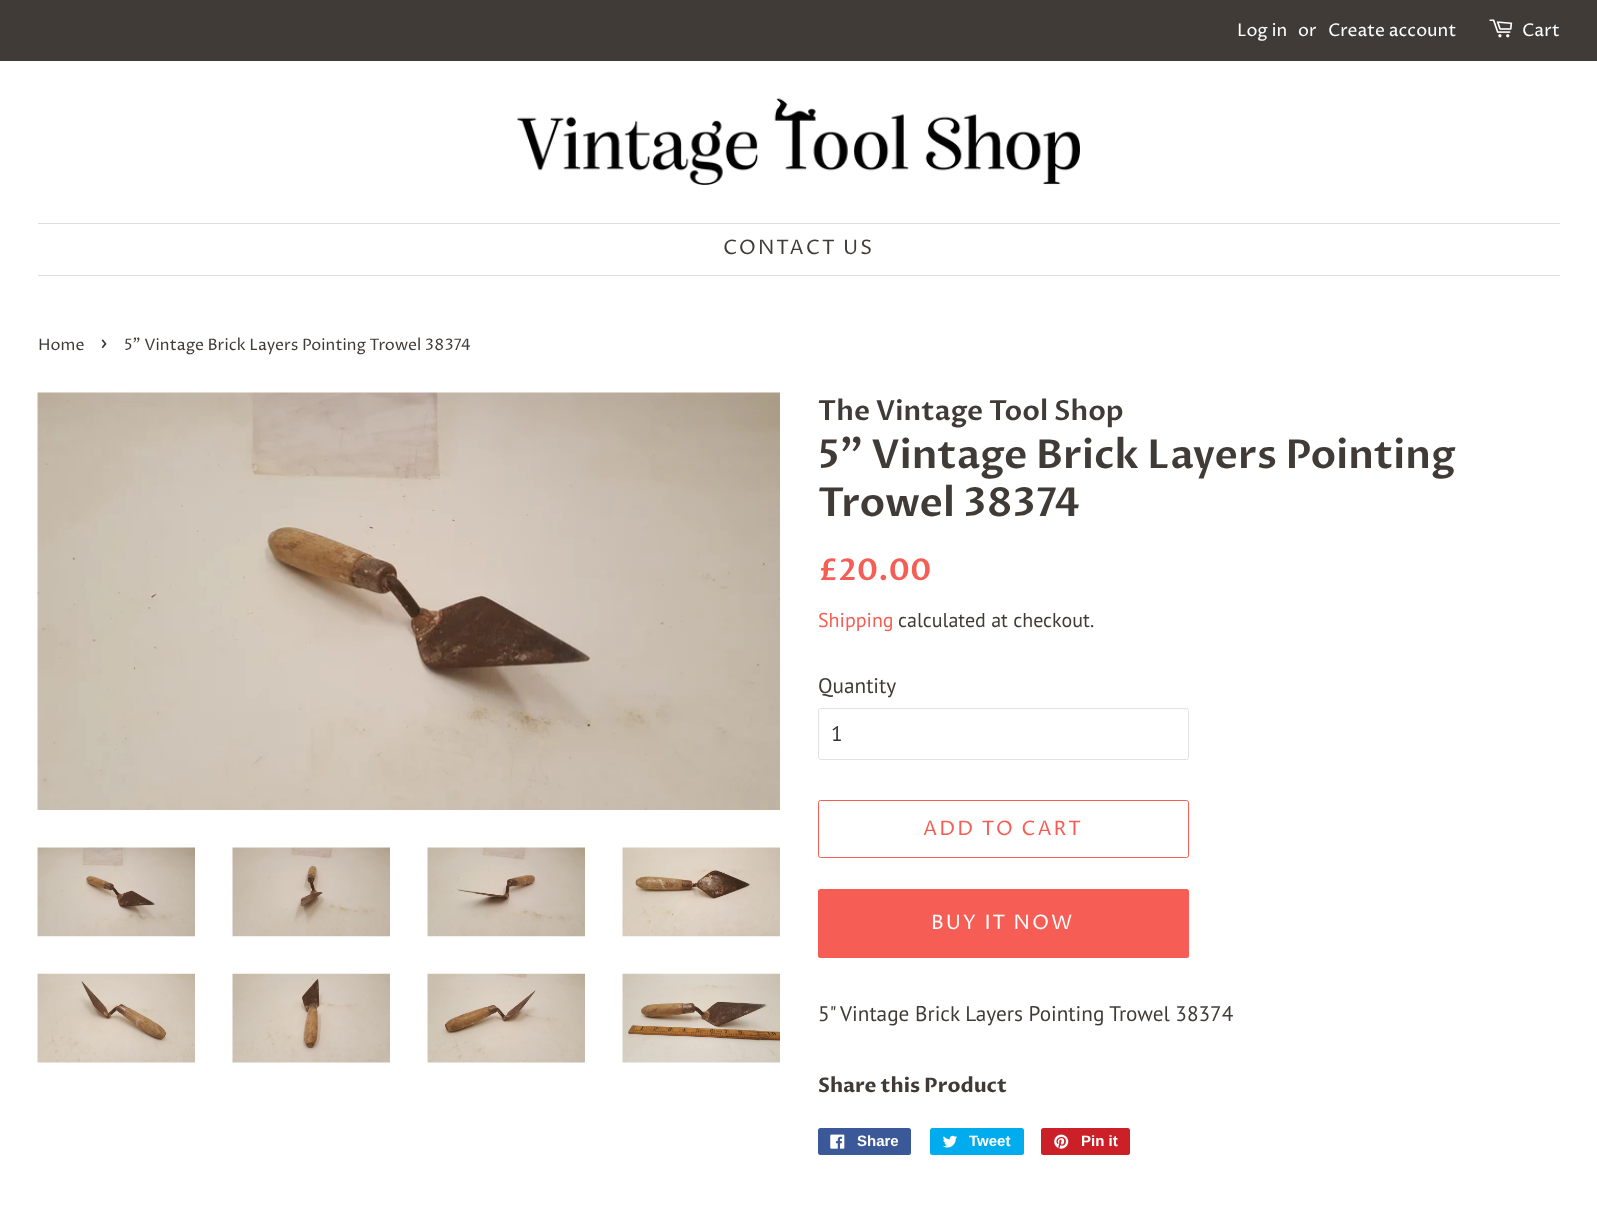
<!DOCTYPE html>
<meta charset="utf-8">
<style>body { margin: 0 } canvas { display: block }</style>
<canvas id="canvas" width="1597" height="1221"></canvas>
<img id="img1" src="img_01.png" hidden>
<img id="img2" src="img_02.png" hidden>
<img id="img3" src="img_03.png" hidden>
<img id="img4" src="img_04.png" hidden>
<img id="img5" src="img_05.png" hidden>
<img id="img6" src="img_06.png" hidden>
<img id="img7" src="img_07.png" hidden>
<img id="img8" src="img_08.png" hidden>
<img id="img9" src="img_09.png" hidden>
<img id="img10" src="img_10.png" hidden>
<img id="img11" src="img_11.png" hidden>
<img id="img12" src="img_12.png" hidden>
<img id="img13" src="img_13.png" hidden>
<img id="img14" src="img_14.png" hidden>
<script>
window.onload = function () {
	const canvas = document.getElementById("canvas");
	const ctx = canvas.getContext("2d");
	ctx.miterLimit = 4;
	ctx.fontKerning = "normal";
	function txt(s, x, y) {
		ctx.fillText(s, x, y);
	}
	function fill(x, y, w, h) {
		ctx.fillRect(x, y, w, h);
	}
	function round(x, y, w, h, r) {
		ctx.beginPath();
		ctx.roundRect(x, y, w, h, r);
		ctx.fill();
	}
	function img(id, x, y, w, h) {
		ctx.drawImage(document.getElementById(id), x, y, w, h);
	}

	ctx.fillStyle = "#FFFFFF";
	fill(0, 0, 1597, 1221);
	ctx.fillStyle = "#403B37";
	fill(0, 0, 1597, 61);
	img("img1", 1489, 19, 24, 19);
	img("img2", 517, 98, 563, 87);
	ctx.fillStyle = "#DDDDDD";
	fill(38, 223, 1522, 1);
	fill(38, 275, 1522, 1);
	img("img3", 37, 392, 743, 418);
	img("img4", 37, 847, 158, 90);
	img("img5", 232, 847, 158, 90);
	img("img6", 427, 847, 158, 90);
	img("img7", 622, 847, 158, 90);
	img("img8", 37, 973, 158, 90);
	img("img9", 232, 973, 158, 90);
	img("img10", 427, 973, 158, 90);
	img("img11", 622, 973, 158, 90);
	ctx.beginPath();
	ctx.roundRect(818.5, 708.5, 370, 51, 2);
	ctx.strokeStyle = "#E2E2E1";
	ctx.stroke();
	ctx.beginPath();
	ctx.roundRect(818.5, 800.5, 370, 57, 2);
	ctx.strokeStyle = "#F65E55";
	ctx.stroke();
	ctx.fillStyle = "#F65E55";
	round(818, 889, 371, 69, 2.5);
	ctx.fillStyle = "#3B5998";
	round(818, 1128, 93, 27, 2.5);
	img("img12", 830, 1134, 15, 15);
	ctx.fillStyle = "#00ACED";
	round(930, 1128, 94, 27, 2.5);
	img("img13", 943, 1135, 14, 13);
	ctx.fillStyle = "#CB2027";
	round(1041, 1128, 89, 27, 2.5);
	img("img14", 1054, 1134, 15, 15);
	ctx.font = "17.5px Proza Libre";
	ctx.fillStyle = "#FFFFFF";
	txt("Log in", 1237, 36);
	txt("or", 1298, 36);
	txt("Create account", 1328, 36);
	txt("Cart", 1522, 36);
	ctx.letterSpacing = "2px";
	ctx.font = "20px Proza Libre";
	ctx.fillStyle = "#403B37";
	txt("CONTACT US", 723, 254);
	ctx.letterSpacing = "0px";
	ctx.font = "15.9px Proza Libre";
	txt("Home", 38, 350);
	ctx.font = "22px Proza Libre";
	txt("›", 100, 350);
	ctx.font = "15.9px Proza Libre";
	txt("5\" Vintage Brick Layers Pointing Trowel 38374", 124, 350);
	ctx.font = "600 27.5px Proza Libre";
	txt("The Vintage Tool Shop", 818, 420);
	ctx.font = "600 40px Proza Libre";
	txt("5\" Vintage Brick Layers Pointing", 818, 468);
	txt("Trowel 38374", 818, 516);
	ctx.font = "600 30px Proza Libre";
	ctx.fillStyle = "#F65E55";
	txt("£20.00", 818, 580);
	ctx.font = "20px PT Sans";
	txt("Shipping", 818, 627);
	ctx.fillStyle = "#403B37";
	txt("calculated at checkout.", 898, 627);
	ctx.font = "21.25px PT Sans";
	txt("Quantity", 818, 693);
	ctx.fillStyle = "#333333";
	txt("1", 831, 741);
	ctx.letterSpacing = "2px";
	ctx.font = "20px Proza Libre";
	ctx.fillStyle = "#F65E55";
	txt("ADD TO CART", 923, 835);
	ctx.fillStyle = "#FFFFFF";
	txt("BUY IT NOW", 931, 929);
	ctx.letterSpacing = "0px";
	ctx.font = "21.25px PT Sans";
	ctx.fillStyle = "#403B37";
	txt("5\" Vintage Brick Layers Pointing Trowel 38374", 818, 1021);
	ctx.font = "bold 20px Proza Libre";
	txt("Share this Product", 818, 1092);
	ctx.font = "bold 15px Liberation Sans";
	ctx.fillStyle = "#FFFFFF";
	txt("Share", 857, 1146);
	txt("Tweet", 969, 1146);
	txt("Pin it", 1081, 1146);
};
</script>
